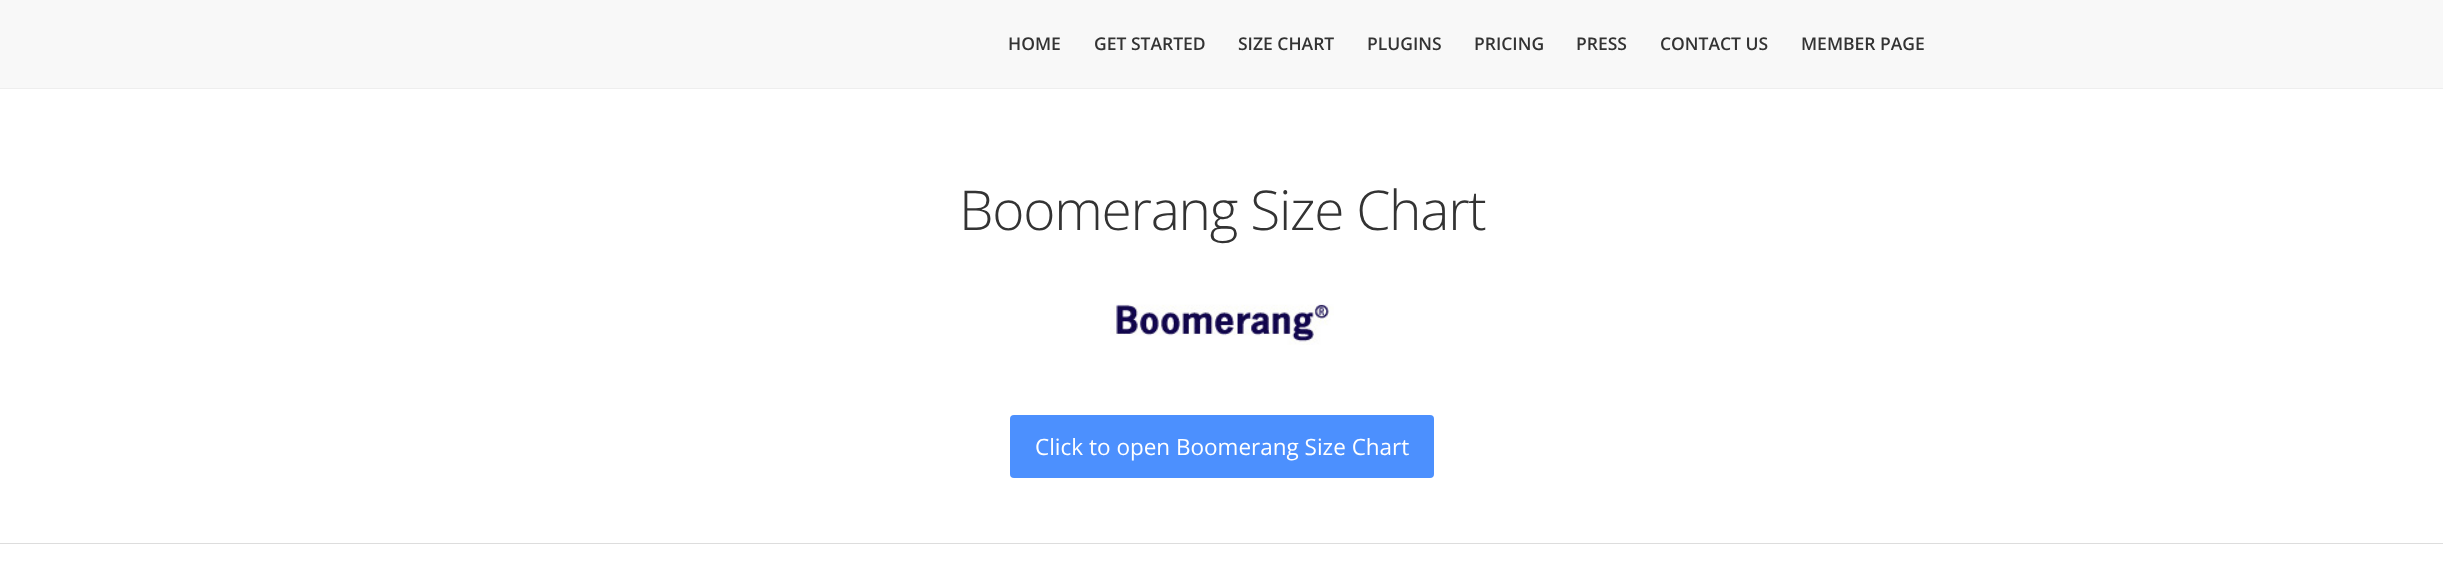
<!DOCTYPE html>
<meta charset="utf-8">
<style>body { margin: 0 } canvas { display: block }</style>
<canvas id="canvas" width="2443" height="566"></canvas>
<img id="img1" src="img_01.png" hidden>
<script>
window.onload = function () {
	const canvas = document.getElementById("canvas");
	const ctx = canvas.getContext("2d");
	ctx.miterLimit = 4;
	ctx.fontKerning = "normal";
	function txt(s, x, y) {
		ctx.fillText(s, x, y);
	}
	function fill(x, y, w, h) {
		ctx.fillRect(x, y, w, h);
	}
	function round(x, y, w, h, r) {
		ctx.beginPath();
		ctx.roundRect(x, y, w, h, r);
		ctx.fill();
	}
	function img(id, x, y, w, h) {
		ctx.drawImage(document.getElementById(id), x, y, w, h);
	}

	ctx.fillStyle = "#FFFFFF";
	fill(0, 0, 2443, 566);
	ctx.fillStyle = "#F8F8F8";
	fill(0, 0, 2443, 88);
	ctx.fillStyle = "#EEEEEE";
	fill(0, 88, 2443, 1);
	img("img1", 1110, 304, 224, 41);
	ctx.fillStyle = "#4C90FE";
	round(1010, 415, 424, 63, 4);
	ctx.fillStyle = "#DDDDDD";
	fill(0, 543, 2443, 1);
	ctx.font = "600 17.5px Open Sans";
	ctx.fillStyle = "#333333";
	txt("HOME", 1008, 50);
	txt("GET STARTED", 1094, 50);
	txt("SIZE CHART", 1238, 50);
	txt("PLUGINS", 1367, 50);
	txt("PRICING", 1474, 50);
	txt("PRESS", 1576, 50);
	txt("CONTACT US", 1660, 50);
	txt("MEMBER PAGE", 1801, 50);
	ctx.letterSpacing = "-1.25px";
	ctx.font = "300 55px Open Sans";
	txt("Boomerang Size Chart", 959, 230);
	ctx.letterSpacing = "0px";
	ctx.font = "22.5px Open Sans";
	ctx.fillStyle = "#FFFFFF";
	txt("Click to open Boomerang Size Chart", 1035, 455);
};
</script>
